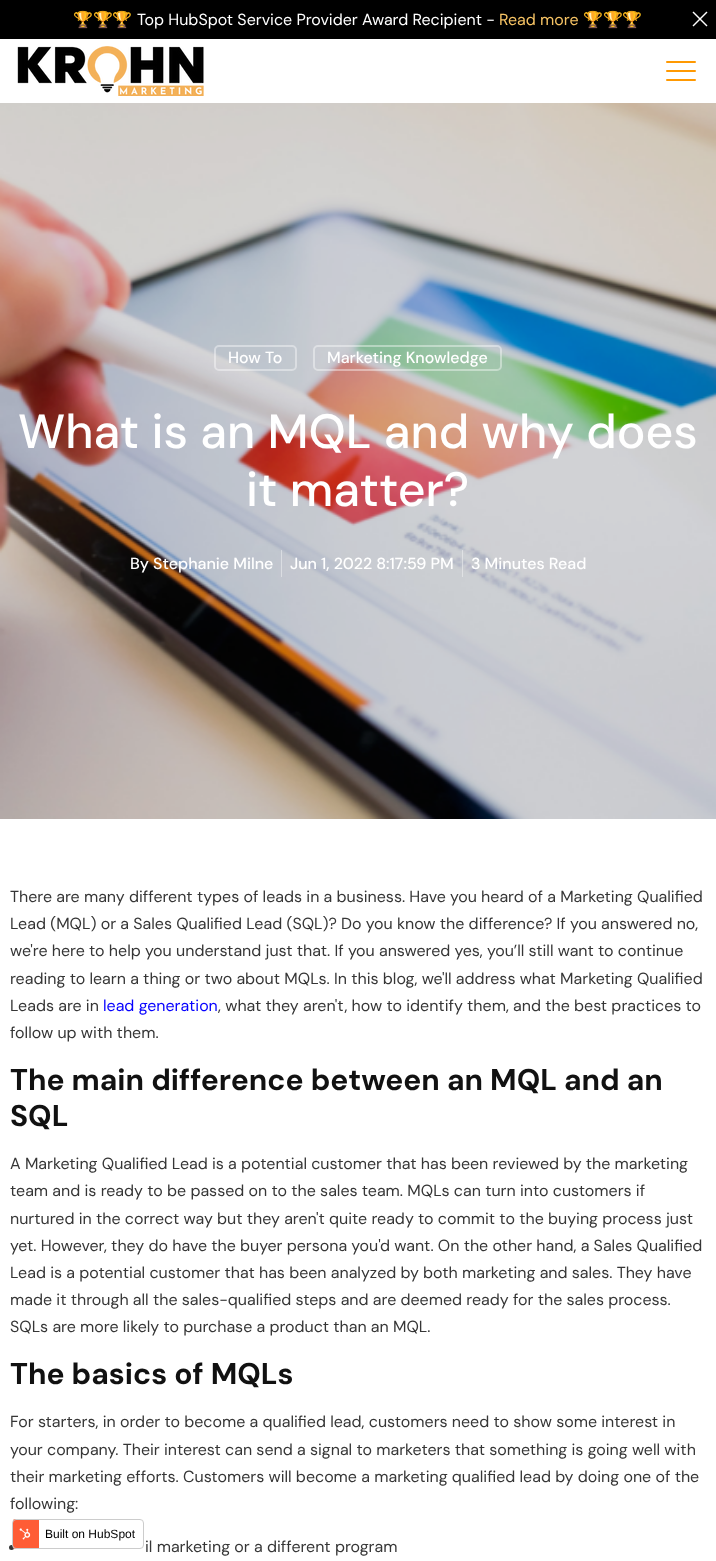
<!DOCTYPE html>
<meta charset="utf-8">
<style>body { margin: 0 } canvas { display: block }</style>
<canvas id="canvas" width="716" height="1561"></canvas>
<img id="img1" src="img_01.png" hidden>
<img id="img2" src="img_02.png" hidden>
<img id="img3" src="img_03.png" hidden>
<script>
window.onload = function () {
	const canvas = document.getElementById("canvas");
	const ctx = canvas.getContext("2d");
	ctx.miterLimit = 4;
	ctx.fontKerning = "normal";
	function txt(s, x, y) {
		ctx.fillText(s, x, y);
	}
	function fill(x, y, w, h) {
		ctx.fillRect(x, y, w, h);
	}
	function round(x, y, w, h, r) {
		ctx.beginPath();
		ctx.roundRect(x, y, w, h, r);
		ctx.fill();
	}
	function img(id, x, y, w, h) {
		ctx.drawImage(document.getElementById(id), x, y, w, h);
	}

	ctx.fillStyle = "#FFFFFF";
	fill(0, 0, 716, 1561);
	ctx.fillStyle = "#000000";
	fill(0, 0, 716, 39);
	ctx.fillStyle = "#FFFFFF";
	ctx.beginPath();
	ctx.moveTo(693.5, 11.5);
	ctx.lineTo(707.5, 25.5);
	ctx.lineTo(706.5, 26.5);
	ctx.lineTo(692.5, 12.5);
	ctx.closePath();
	ctx.fill();
	ctx.beginPath();
	ctx.moveTo(692.5, 25.5);
	ctx.lineTo(706.5, 11.5);
	ctx.lineTo(707.5, 12.5);
	ctx.lineTo(693.5, 26.5);
	ctx.closePath();
	ctx.fill();
	img("img1", 17, 46, 187, 50);
	ctx.fillStyle = "#FF9902";
	round(666, 61, 30, 2, 1);
	round(666, 70, 30, 2, 1);
	round(666, 79, 30, 2, 1);
	img("img2", 0, 103, 716, 716);
	ctx.beginPath();
	ctx.roundRect(215, 346, 81, 24, 4);
	ctx.strokeStyle = "rgba(255, 255, 255, 0.4)";
	ctx.lineWidth = 2;
	ctx.stroke();
	ctx.beginPath();
	ctx.roundRect(314, 346, 187, 24, 4);
	ctx.stroke();
	ctx.fillStyle = "rgba(255, 255, 255, 0.4)";
	fill(281, 550, 1, 27);
	fill(462, 550, 1, 27);
	ctx.fillStyle = "#363636";
	ctx.beginPath();
	ctx.arc(11.5, 1547.5, 2.5, 0, Math.PI * 2);
	ctx.fill();
	ctx.save();
	ctx.beginPath();
	ctx.roundRect(12, 1519, 132, 30, 4);
	ctx.clip();
	ctx.fillStyle = "#FF5C35";
	fill(13, 1519, 26, 30);
	ctx.restore();
	ctx.beginPath();
	ctx.roundRect(12.5, 1519.5, 131, 29, 3.5);
	ctx.strokeStyle = "#CCCCCC";
	ctx.lineWidth = 1;
	ctx.stroke();
	img("img3", 19, 1528, 12, 12);
	ctx.font = "16px Noto Color Emoji";
	ctx.fillStyle = "#FFFFFF";
	txt("🏆🏆🏆", 73, 25);
	ctx.font = "16px DM Sans";
	txt("Top HubSpot Service Provider Award Recipient -", 137, 25);
	ctx.fillStyle = "#F6C364";
	txt("Read more", 499, 25);
	ctx.font = "16px Noto Color Emoji";
	ctx.fillStyle = "#FF9902";
	txt("🏆🏆🏆", 583, 25);
	ctx.font = "500 16px DM Sans";
	ctx.fillStyle = "#FFFFFF";
	txt("How To", 228, 363);
	txt("Marketing Knowledge", 327, 363);
	ctx.font = "500 48px DM Sans";
	txt("What is an MQL and why does", 18, 448);
	txt("it matter?", 246, 506);
	ctx.font = "500 16px DM Sans";
	txt("By Stephanie Milne", 130, 569);
	txt("Jun 1, 2022 8:17:59 PM", 290, 569);
	txt("3 Minutes Read", 471, 569);
	ctx.font = "16px DM Sans";
	ctx.fillStyle = "#363636";
	txt("There are many different types of leads in a business. Have you heard of a Marketing Qualified", 10, 902);
	txt("Lead (MQL) or a Sales Qualified Lead (SQL)? Do you know the difference? If you answered no,", 10, 929);
	txt("we're here to help you understand just that. If you answered yes, you’ll still want to continue", 10, 956);
	txt("reading to learn a thing or two about MQLs. In this blog, we'll address what Marketing Qualified", 10, 984);
	txt("Leads are in", 10, 1011);
	ctx.fillStyle = "#0600FF";
	txt("lead generation", 103, 1011);
	ctx.fillStyle = "#363636";
	txt(", what they aren't, how to identify them, and the best practices to", 218, 1011);
	txt("follow up with them.", 10, 1038);
	ctx.font = "bold 30px DM Sans";
	ctx.fillStyle = "#111111";
	txt("The main difference between an MQL and an", 10, 1090);
	txt("SQL", 10, 1126);
	ctx.font = "16px DM Sans";
	ctx.fillStyle = "#363636";
	txt("A Marketing Qualified Lead is a potential customer that has been reviewed by the marketing", 10, 1169);
	txt("team and is ready to be passed on to the sales team. MQLs can turn into customers if", 10, 1196);
	txt("nurtured in the correct way but they aren't quite ready to commit to the buying process just", 10, 1224);
	txt("yet. However, they do have the buyer persona you'd want. On the other hand, a Sales Qualified", 10, 1251);
	txt("Lead is a potential customer that has been analyzed by both marketing and sales. They have", 10, 1278);
	txt("made it through all the sales-qualified steps and are deemed ready for the sales process.", 10, 1305);
	txt("SQLs are more likely to purchase a product than an MQL.", 10, 1332);
	ctx.font = "bold 30px DM Sans";
	ctx.fillStyle = "#111111";
	txt("The basics of MQLs", 10, 1384);
	ctx.font = "16px DM Sans";
	ctx.fillStyle = "#363636";
	txt("For starters, in order to become a qualified lead, customers need to show some interest in", 10, 1427);
	txt("your company. Their interest can send a signal to marketers that something is going well with", 10, 1455);
	txt("their marketing efforts. Customers will become a marketing qualified lead by doing one of the", 10, 1482);
	txt("following:", 10, 1509);
	txt("il marketing or a different program", 145, 1552);
	ctx.font = "12px Liberation Sans";
	ctx.fillStyle = "#000000";
	txt("Built on HubSpot", 45, 1538);
};
</script>
